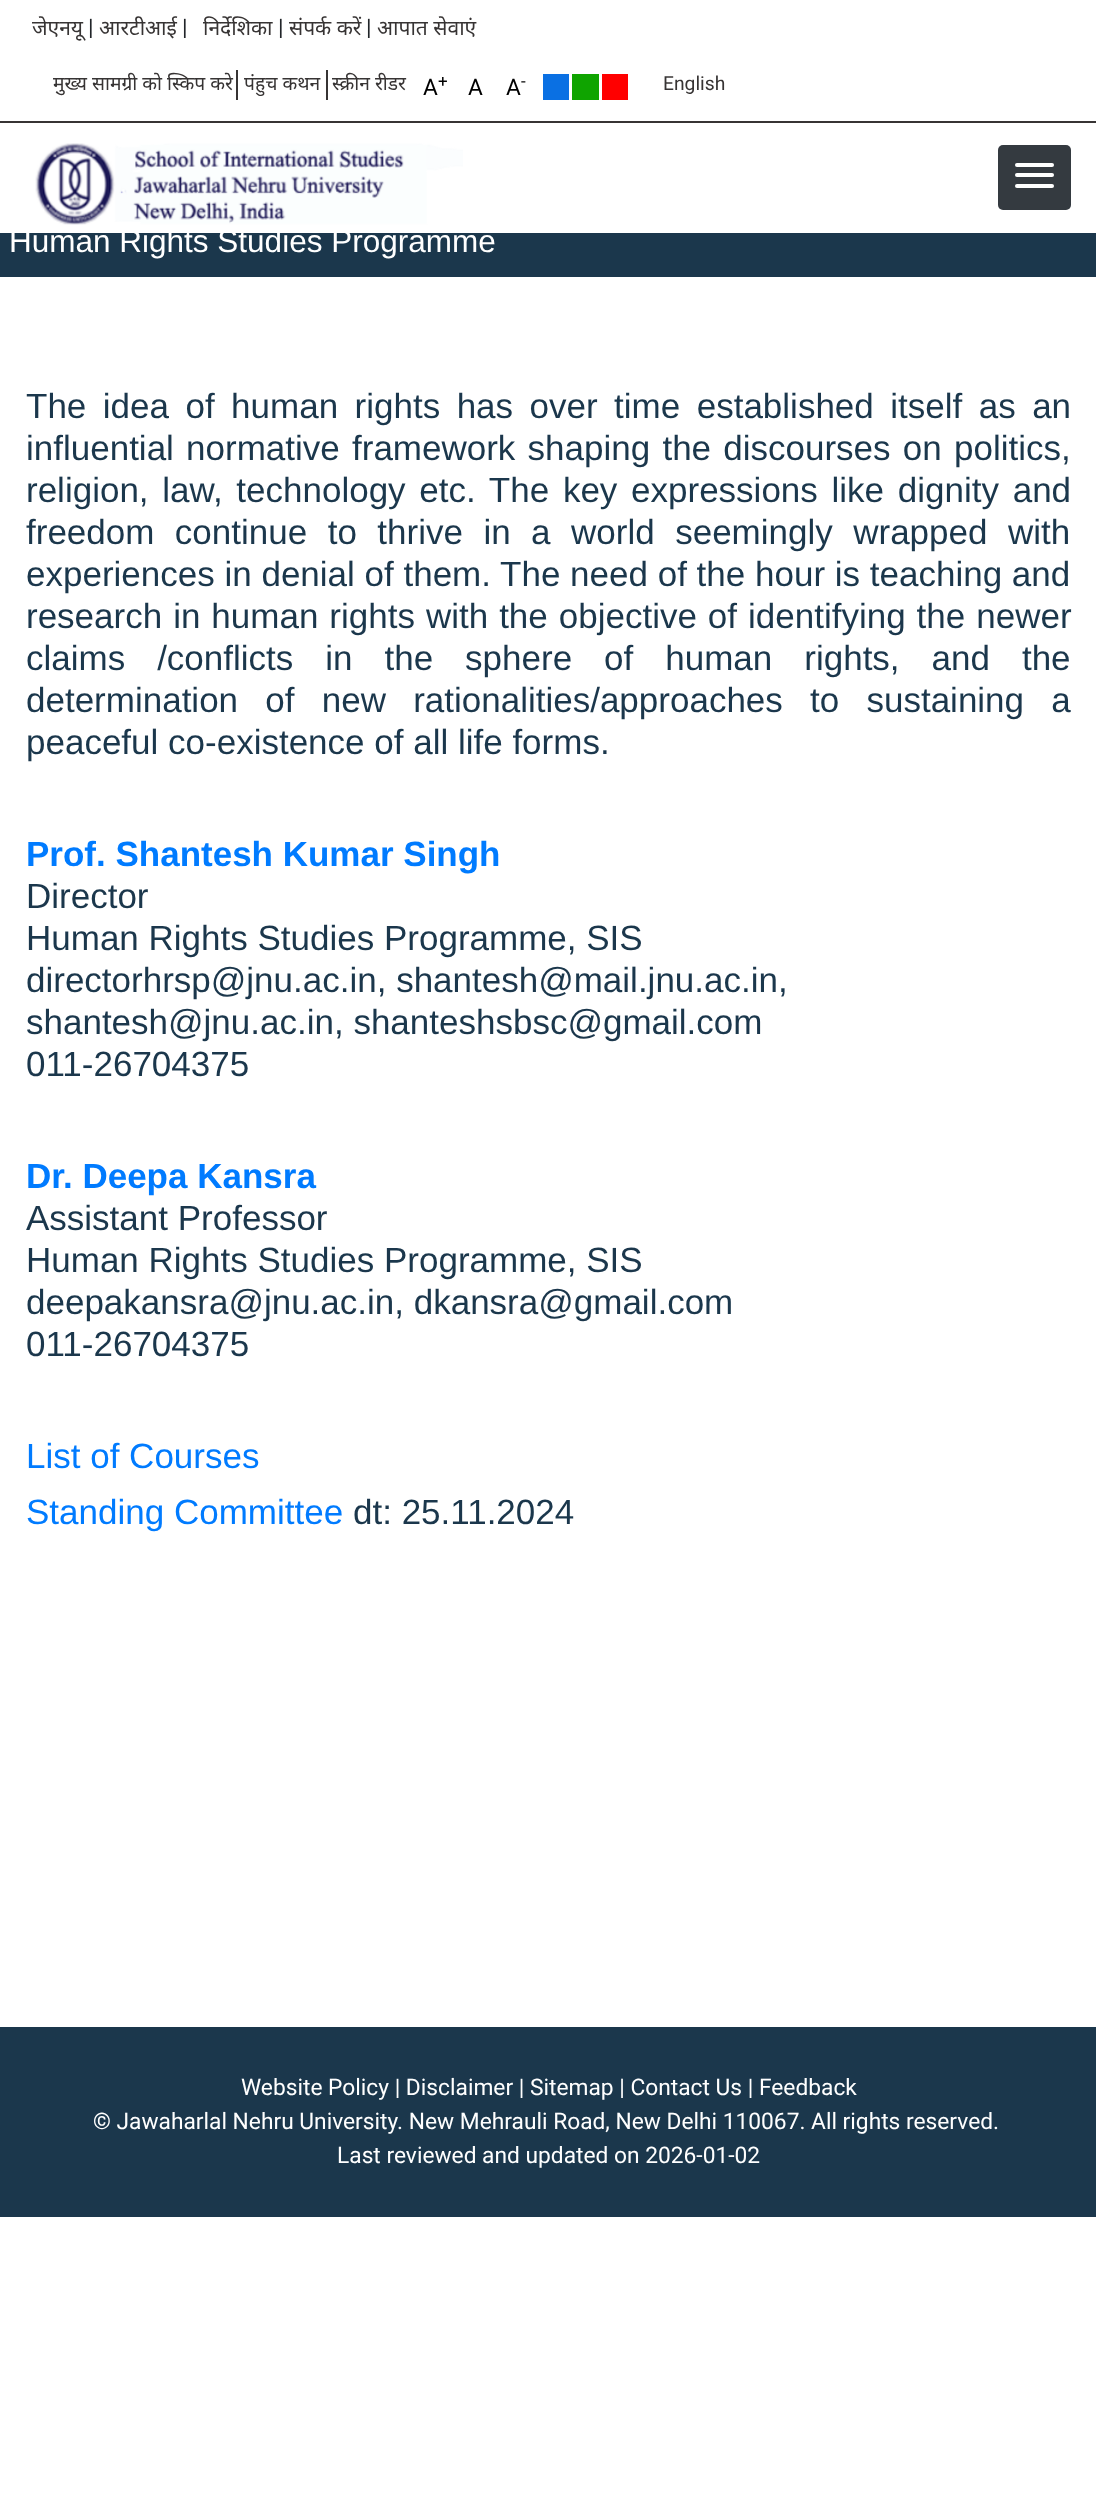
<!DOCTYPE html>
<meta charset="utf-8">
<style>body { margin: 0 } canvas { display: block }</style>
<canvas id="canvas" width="1096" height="2497"></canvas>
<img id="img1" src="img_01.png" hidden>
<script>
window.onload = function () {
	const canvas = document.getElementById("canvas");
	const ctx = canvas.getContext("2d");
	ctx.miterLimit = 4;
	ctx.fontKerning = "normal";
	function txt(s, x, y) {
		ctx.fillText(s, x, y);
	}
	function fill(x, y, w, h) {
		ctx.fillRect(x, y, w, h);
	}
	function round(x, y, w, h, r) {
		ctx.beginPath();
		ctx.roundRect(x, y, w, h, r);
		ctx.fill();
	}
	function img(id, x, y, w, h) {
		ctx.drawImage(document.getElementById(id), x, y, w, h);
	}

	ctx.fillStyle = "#FFFFFF";
	fill(0, 0, 1096, 2497);
	ctx.fillStyle = "#373434";
	fill(0, 121, 1096, 2);
	fill(236, 70, 2, 30);
	fill(326, 70, 2, 30);
	ctx.fillStyle = "#0A70E3";
	fill(543, 74, 26, 26);
	ctx.fillStyle = "#0FA400";
	fill(572, 74, 27, 26);
	ctx.fillStyle = "#FF0000";
	fill(602, 74, 26, 26);
	img("img1", 35, 143, 428, 82);
	ctx.fillStyle = "#343A40";
	round(998, 145, 73, 65, 5);
	ctx.fillStyle = "#FFFFFF";
	round(1015, 163, 39, 4, 2);
	round(1015, 173, 39, 4, 2);
	round(1015, 184, 39, 4, 2);
	ctx.fillStyle = "#1B374C";
	fill(0, 233, 1096, 44);
	fill(0, 2027, 1096, 190);
	ctx.font = "21px Noto Sans";
	ctx.fillStyle = "#373434";
	txt("जेएनयू", 32, 35);
	ctx.font = "22.75px Roboto";
	ctx.fillStyle = "#212529";
	txt("|", 88, 35);
	ctx.font = "21px Noto Sans";
	ctx.fillStyle = "#373434";
	txt("आरटीआई", 99, 35);
	ctx.font = "22.75px Roboto";
	ctx.fillStyle = "#212529";
	txt("|", 182, 35);
	ctx.font = "21px Noto Sans";
	ctx.fillStyle = "#373434";
	txt("निर्देशिका", 203, 35);
	ctx.font = "22.75px Roboto";
	ctx.fillStyle = "#212529";
	txt("|", 278, 35);
	ctx.font = "21px Noto Sans";
	ctx.fillStyle = "#373434";
	txt("संपर्क करें", 289, 35);
	ctx.font = "22.75px Roboto";
	ctx.fillStyle = "#212529";
	txt("|", 366, 35);
	ctx.font = "21px Noto Sans";
	ctx.fillStyle = "#373434";
	txt("आपात सेवाएं", 377, 35);
	ctx.font = "19.25px Noto Sans";
	txt("मुख्य सामग्री को स्किप करे", 53, 90);
	txt("पंहुच कथन", 244, 90);
	txt("स्क्रीन रीडर", 332, 90);
	ctx.font = "22.75px Roboto";
	ctx.fillStyle = "#000000";
	txt("A", 423, 95);
	ctx.font = "17px Roboto";
	txt("+", 438, 87);
	ctx.font = "22.75px Roboto";
	txt("A", 468, 95);
	txt("A", 506, 95);
	ctx.font = "17px Roboto";
	txt("-", 521, 87);
	ctx.font = "19.25px Roboto";
	ctx.fillStyle = "#373434";
	txt("English", 663, 90);
	ctx.font = "31.5px Liberation Sans";
	ctx.fillStyle = "#FFFFFF";
	txt("Human Rights Studies Programme", 9, 252);
	ctx.wordSpacing = "6.75px";
	ctx.font = "35px Liberation Sans";
	ctx.fillStyle = "#1B374C";
	txt("The idea of human rights has over time established itself as an", 26, 418);
	ctx.wordSpacing = "2.5px";
	txt("influential normative framework shaping the discourses on politics,", 26, 460);
	ctx.wordSpacing = "4px";
	txt("religion, law, technology etc. The key expressions like dignity and", 26, 502);
	ctx.wordSpacing = "10.75px";
	txt("freedom continue to thrive in a world seemingly wrapped with", 26, 544);
	ctx.wordSpacing = "0px";
	txt("experiences in denial of them. The need of the hour is teaching and", 26, 586);
	ctx.wordSpacing = "1.25px";
	txt("research in human rights with the objective of identifying the newer", 26, 628);
	ctx.wordSpacing = "22.25px";
	txt("claims /conflicts in the sphere of human rights, and the", 26, 670);
	ctx.wordSpacing = "17.5px";
	txt("determination of new rationalities/approaches to sustaining a", 26, 712);
	ctx.wordSpacing = "0px";
	txt("peaceful co-existence of all life forms.", 26, 754);
	ctx.font = "bold 35px Liberation Sans";
	ctx.fillStyle = "#007BFF";
	txt("Prof. Shantesh Kumar Singh", 26, 866);
	ctx.font = "35px Liberation Sans";
	ctx.fillStyle = "#1B374C";
	txt("Director", 26, 908);
	txt("Human Rights Studies Programme, SIS", 26, 950);
	txt("directorhrsp@jnu.ac.in, shantesh@mail.jnu.ac.in,", 26, 992);
	txt("shantesh@jnu.ac.in, shanteshsbsc@gmail.com", 26, 1034);
	txt("011-26704375", 26, 1076);
	ctx.font = "bold 35px Liberation Sans";
	ctx.fillStyle = "#007BFF";
	txt("Dr. Deepa Kansra", 26, 1188);
	ctx.font = "35px Liberation Sans";
	ctx.fillStyle = "#1B374C";
	txt("Assistant Professor", 26, 1230);
	txt("Human Rights Studies Programme, SIS", 26, 1272);
	txt("deepakansra@jnu.ac.in, dkansra@gmail.com", 26, 1314);
	txt("011-26704375", 26, 1356);
	ctx.fillStyle = "#007BFF";
	txt("List of Courses", 26, 1468);
	txt("Standing Committee", 26, 1524);
	ctx.fillStyle = "#1B374C";
	txt("dt: 25.11.2024", 353, 1524);
	ctx.font = "22.75px Roboto";
	ctx.fillStyle = "#FFFFFF";
	txt("Website Policy | Disclaimer | Sitemap | Contact Us | Feedback", 241, 2095);
	txt("© Jawaharlal Nehru University. New Mehrauli Road, New Delhi 110067. All rights reserved.", 93, 2129);
	txt("Last reviewed and updated on 2026-01-02", 337, 2163);
};
</script>
